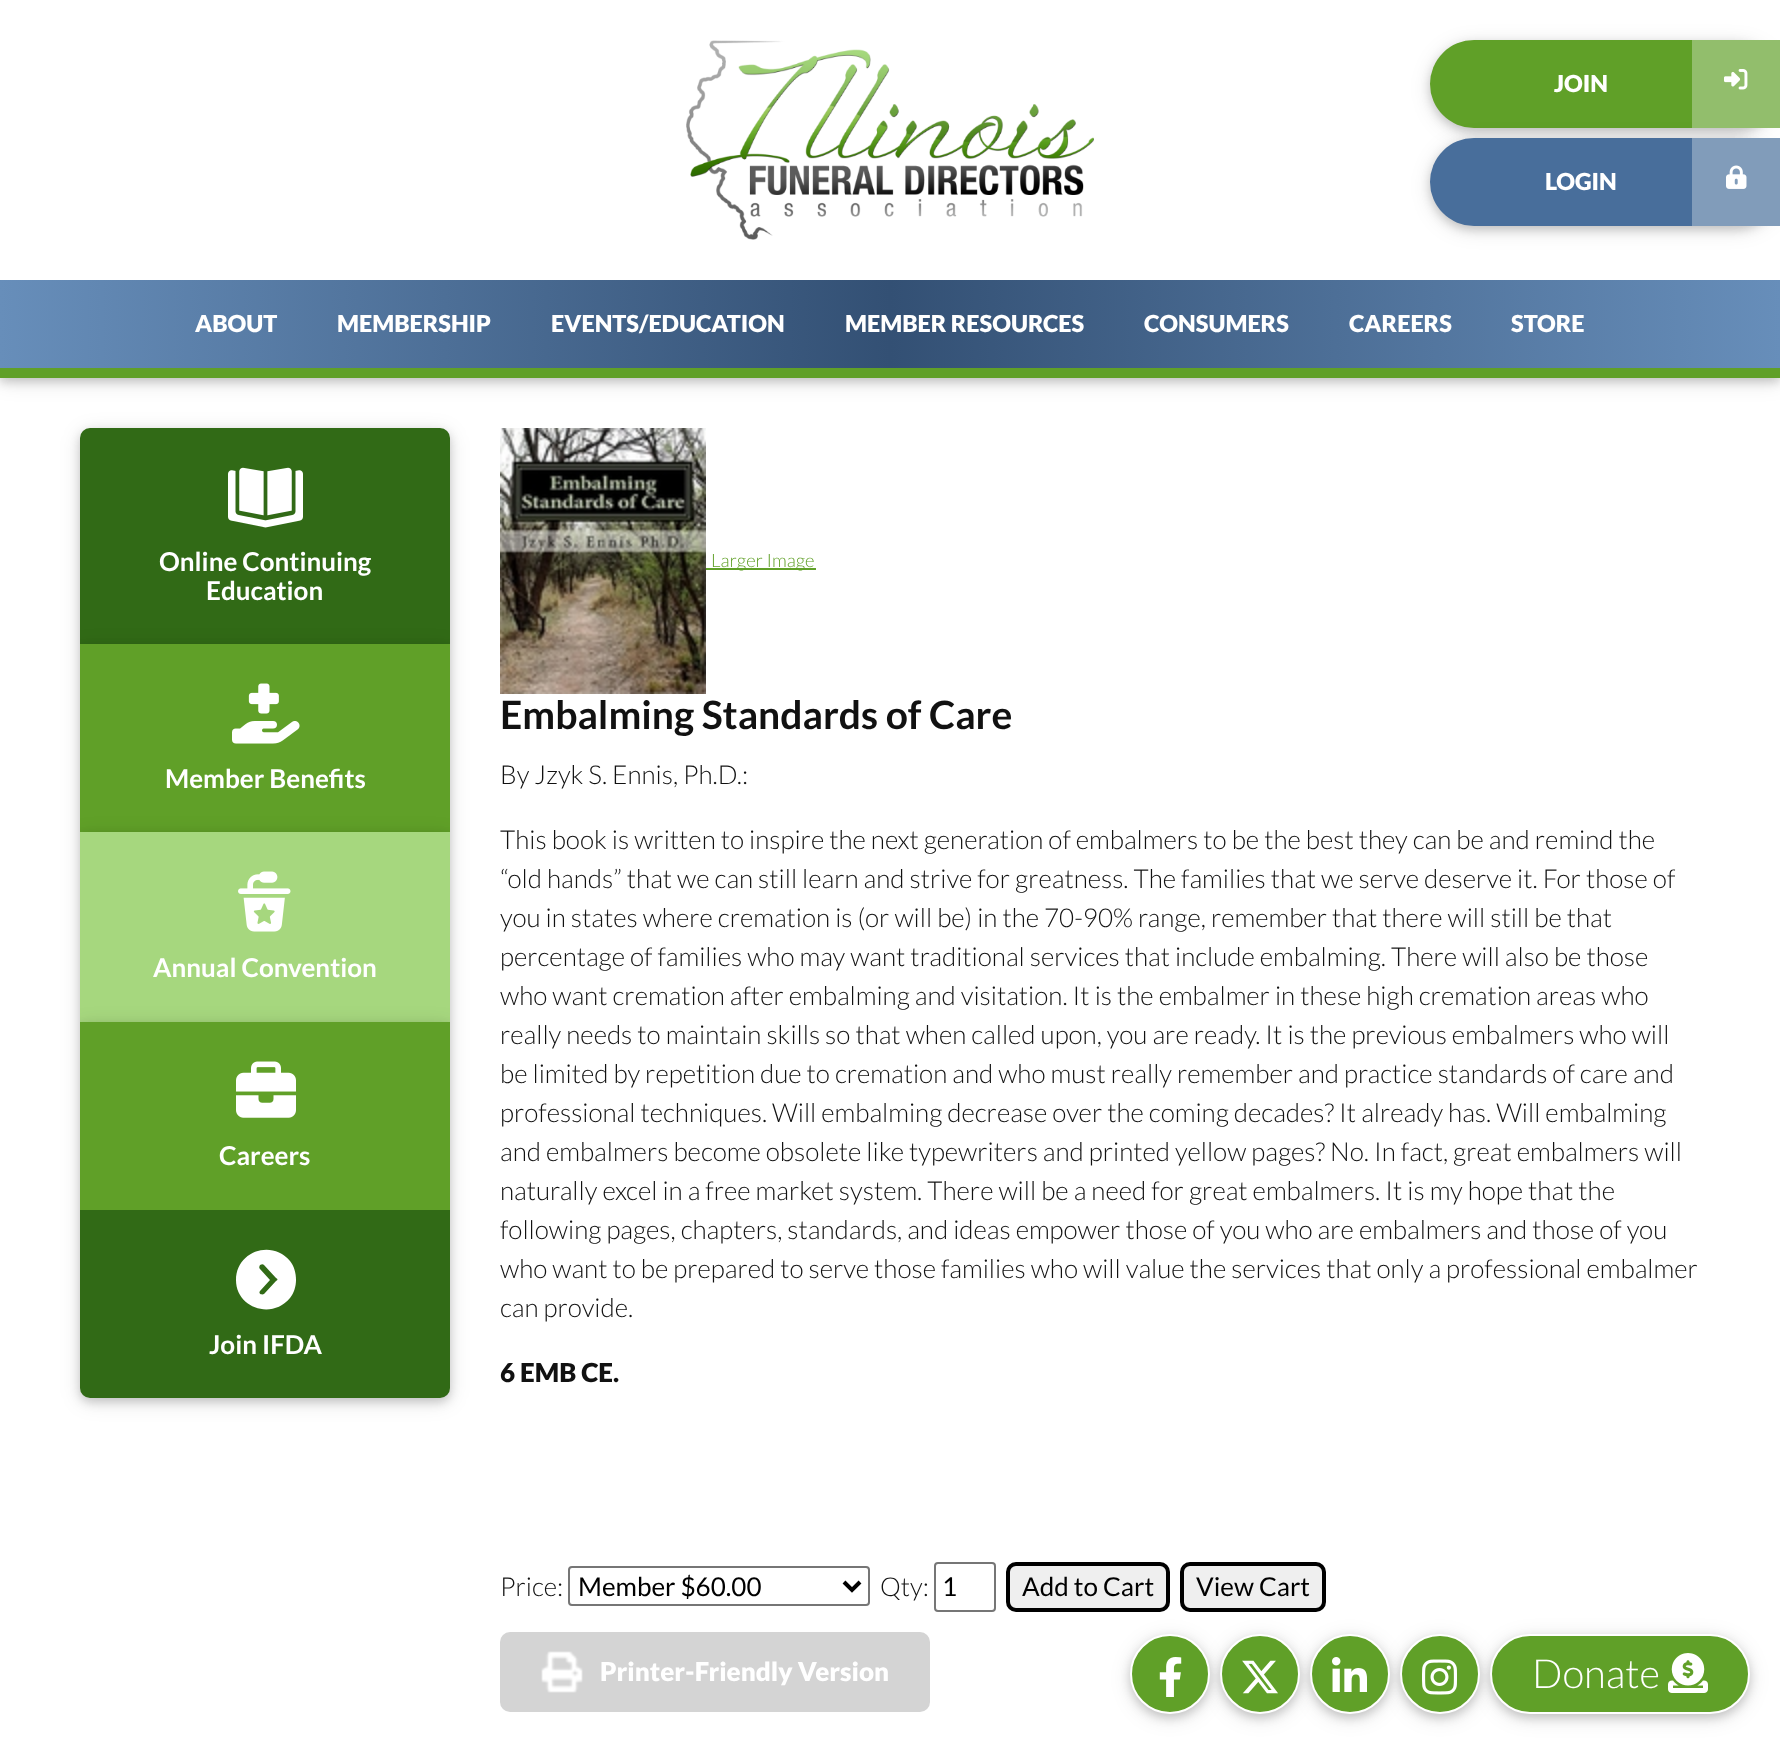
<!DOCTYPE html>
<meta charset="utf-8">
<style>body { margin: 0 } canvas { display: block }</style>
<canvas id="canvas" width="1780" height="1744"></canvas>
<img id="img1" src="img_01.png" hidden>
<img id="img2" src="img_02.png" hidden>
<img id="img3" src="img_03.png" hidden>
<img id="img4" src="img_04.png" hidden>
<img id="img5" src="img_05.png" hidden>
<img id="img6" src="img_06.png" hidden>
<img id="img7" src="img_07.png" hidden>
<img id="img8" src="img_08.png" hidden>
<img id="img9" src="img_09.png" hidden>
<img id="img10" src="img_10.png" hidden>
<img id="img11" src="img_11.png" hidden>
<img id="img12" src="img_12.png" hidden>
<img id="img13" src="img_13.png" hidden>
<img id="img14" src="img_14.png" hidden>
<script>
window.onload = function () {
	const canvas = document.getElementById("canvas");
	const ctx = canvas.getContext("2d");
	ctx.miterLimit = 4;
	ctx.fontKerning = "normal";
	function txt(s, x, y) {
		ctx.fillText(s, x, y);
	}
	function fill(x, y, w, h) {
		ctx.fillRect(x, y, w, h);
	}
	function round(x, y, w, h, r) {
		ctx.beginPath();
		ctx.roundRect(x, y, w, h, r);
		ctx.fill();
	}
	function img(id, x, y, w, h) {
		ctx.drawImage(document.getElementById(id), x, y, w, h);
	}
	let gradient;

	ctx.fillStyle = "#FFFFFF";
	fill(0, 0, 1780, 1744);
	ctx.fillStyle = "rgba(0, 0, 0, 0.12)";
	ctx.filter = "blur(10px)";
	ctx.beginPath();
	ctx.rect(0, 4, 1780, 378);
	ctx.fill();
	ctx.filter = "none";
	ctx.fillStyle = "rgba(0, 0, 0, 0.16)";
	ctx.filter = "blur(5px)";
	ctx.beginPath();
	ctx.rect(0, 4, 1780, 378);
	ctx.fill();
	ctx.filter = "none";
	ctx.fillStyle = "#FFFFFF";
	fill(0, 0, 1780, 280);
	ctx.fillStyle = "#60A028";
	fill(0, 368, 1780, 10);
	img("img1", 686, 40, 408, 200);
	gradient = ctx.createLinearGradient(0, 324, 1780, 324);
	gradient.addColorStop(0, "#678EBA");
	gradient.addColorStop(0.5, "#335074");
	gradient.addColorStop(1, "#678EBA");
	ctx.fillStyle = gradient;
	fill(0, 280, 1780, 88);
	ctx.fillStyle = "rgba(0, 0, 0, 0.12)";
	ctx.filter = "blur(10px)";
	ctx.beginPath();
	ctx.roundRect(1430, 44, 350, 88, 44);
	ctx.fill();
	ctx.filter = "none";
	ctx.fillStyle = "rgba(0, 0, 0, 0.16)";
	ctx.filter = "blur(5px)";
	ctx.beginPath();
	ctx.roundRect(1430, 44, 350, 88, 44);
	ctx.fill();
	ctx.filter = "none";
	ctx.fillStyle = "#60A028";
	ctx.beginPath();
	ctx.roundRect(1430, 40, 350, 88, [44, 0, 0, 44]);
	ctx.fill();
	ctx.fillStyle = "rgba(0, 0, 0, 0.12)";
	ctx.filter = "blur(10px)";
	ctx.beginPath();
	ctx.roundRect(1430, 142, 350, 88, 44);
	ctx.fill();
	ctx.filter = "none";
	ctx.fillStyle = "rgba(0, 0, 0, 0.16)";
	ctx.filter = "blur(5px)";
	ctx.beginPath();
	ctx.roundRect(1430, 142, 350, 88, 44);
	ctx.fill();
	ctx.filter = "none";
	ctx.fillStyle = "#92BE6C";
	fill(1692, 40, 88, 88);
	img("img2", 1724, 69, 24, 21);
	ctx.fillStyle = "#486E9B";
	ctx.beginPath();
	ctx.roundRect(1430, 138, 350, 88, [44, 0, 0, 44]);
	ctx.fill();
	ctx.fillStyle = "#819CBA";
	fill(1692, 138, 88, 88);
	img("img3", 1726, 165, 21, 24);
	ctx.fillStyle = "rgba(0, 0, 0, 0.12)";
	ctx.filter = "blur(10px)";
	ctx.beginPath();
	ctx.roundRect(80, 432, 370, 970, 10);
	ctx.fill();
	ctx.filter = "none";
	ctx.fillStyle = "rgba(0, 0, 0, 0.16)";
	ctx.filter = "blur(5px)";
	ctx.beginPath();
	ctx.roundRect(80, 432, 370, 970, 10);
	ctx.fill();
	ctx.filter = "none";
	ctx.fillStyle = "#316A16";
	ctx.beginPath();
	ctx.roundRect(80, 428, 370, 216, [10, 10, 0, 0]);
	ctx.fill();
	img("img4", 228, 467, 75, 61);
	ctx.save();
	ctx.beginPath();
	ctx.roundRect(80, 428, 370, 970, 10);
	ctx.clip();
	ctx.fillStyle = "rgba(0, 0, 0, 0.12)";
	ctx.filter = "blur(10px)";
	ctx.beginPath();
	ctx.rect(80, 648, 370, 188);
	ctx.fill();
	ctx.filter = "none";
	ctx.fillStyle = "rgba(0, 0, 0, 0.16)";
	ctx.filter = "blur(5px)";
	ctx.beginPath();
	ctx.rect(80, 648, 370, 188);
	ctx.fill();
	ctx.filter = "none";
	ctx.restore();
	ctx.fillStyle = "#60A028";
	fill(80, 644, 370, 188);
	img("img5", 232, 683, 68, 61);
	ctx.save();
	ctx.beginPath();
	ctx.roundRect(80, 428, 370, 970, 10);
	ctx.clip();
	ctx.fillStyle = "rgba(0, 0, 0, 0.12)";
	ctx.filter = "blur(10px)";
	ctx.beginPath();
	ctx.rect(80, 836, 370, 190);
	ctx.fill();
	ctx.filter = "none";
	ctx.fillStyle = "rgba(0, 0, 0, 0.16)";
	ctx.filter = "blur(5px)";
	ctx.beginPath();
	ctx.rect(80, 836, 370, 190);
	ctx.fill();
	ctx.filter = "none";
	ctx.restore();
	ctx.fillStyle = "#A6D77E";
	fill(80, 832, 370, 190);
	img("img6", 238, 871, 53, 61);
	ctx.save();
	ctx.beginPath();
	ctx.roundRect(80, 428, 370, 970, 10);
	ctx.clip();
	ctx.fillStyle = "rgba(0, 0, 0, 0.12)";
	ctx.filter = "blur(10px)";
	ctx.beginPath();
	ctx.rect(80, 1026, 370, 188);
	ctx.fill();
	ctx.filter = "none";
	ctx.fillStyle = "rgba(0, 0, 0, 0.16)";
	ctx.filter = "blur(5px)";
	ctx.beginPath();
	ctx.rect(80, 1026, 370, 188);
	ctx.fill();
	ctx.filter = "none";
	ctx.restore();
	ctx.fillStyle = "#60A028";
	fill(80, 1022, 370, 188);
	img("img7", 236, 1061, 60, 57);
	ctx.fillStyle = "#316A16";
	ctx.beginPath();
	ctx.roundRect(80, 1210, 370, 188, [0, 0, 10, 10]);
	ctx.fill();
	ctx.fillStyle = "#FFFFFF";
	ctx.beginPath();
	ctx.moveTo(236, 1280);
	ctx.bezierCurveTo(236, 1308, 272, 1320, 290, 1298);
	ctx.bezierCurveTo(294, 1293, 296, 1286, 296, 1280);
	ctx.bezierCurveTo(296, 1273, 294, 1266, 290, 1261);
	ctx.bezierCurveTo(272, 1239, 236, 1251, 236, 1280);
	ctx.closePath();
	ctx.moveTo(264, 1294);
	ctx.bezierCurveTo(262, 1295, 258, 1294, 260, 1291);
	ctx.lineTo(270, 1280);
	ctx.lineTo(260, 1269);
	ctx.bezierCurveTo(259, 1268, 259, 1267, 260, 1265);
	ctx.bezierCurveTo(262, 1264, 263, 1264, 264, 1265);
	ctx.lineTo(276, 1278);
	ctx.bezierCurveTo(278, 1279, 278, 1280, 276, 1281);
	ctx.closePath();
	ctx.fill();
	img("img8", 500, 428, 206, 266);
	ctx.fillStyle = "#60A028";
	fill(706, 568, 110, 2);
	ctx.beginPath();
	ctx.roundRect(569, 1567, 300, 38, 3);
	ctx.strokeStyle = "#767676";
	ctx.lineWidth = 2;
	ctx.stroke();
	ctx.beginPath();
	ctx.moveTo(844, 1582);
	ctx.lineTo(852, 1590);
	ctx.lineTo(860, 1582);
	ctx.strokeStyle = "#000000";
	ctx.lineWidth = 4;
	ctx.stroke();
	ctx.beginPath();
	ctx.roundRect(935, 1563, 60, 48, 3);
	ctx.strokeStyle = "#767676";
	ctx.lineWidth = 2;
	ctx.stroke();
	ctx.fillStyle = "#EFEFEF";
	ctx.beginPath();
	ctx.roundRect(1008, 1564, 160, 46, 8);
	ctx.fill();
	ctx.strokeStyle = "#000000";
	ctx.lineWidth = 4;
	ctx.stroke();
	ctx.beginPath();
	ctx.roundRect(1182, 1564, 142, 46, 8);
	ctx.fill();
	ctx.stroke();
	ctx.fillStyle = "#D4D4D4";
	round(500, 1632, 430, 80, 10);
	img("img9", 541, 1651, 42, 42);
	ctx.fillStyle = "rgba(0, 0, 0, 0.12)";
	ctx.filter = "blur(10px)";
	ctx.beginPath();
	ctx.roundRect(1490, 1638, 260, 80, 40);
	ctx.fill();
	ctx.filter = "none";
	ctx.fillStyle = "rgba(0, 0, 0, 0.16)";
	ctx.filter = "blur(5px)";
	ctx.beginPath();
	ctx.roundRect(1490, 1638, 260, 80, 40);
	ctx.fill();
	ctx.filter = "none";
	ctx.fillStyle = "#60A028";
	ctx.beginPath();
	ctx.roundRect(1491, 1635, 258, 78, 39);
	ctx.fill();
	ctx.strokeStyle = "#FFFFFF";
	ctx.lineWidth = 2;
	ctx.stroke();
	ctx.fillStyle = "rgba(0, 0, 0, 0.12)";
	ctx.filter = "blur(10px)";
	ctx.beginPath();
	ctx.roundRect(1400, 1638, 80, 80, 40);
	ctx.fill();
	ctx.filter = "none";
	ctx.fillStyle = "rgba(0, 0, 0, 0.16)";
	ctx.filter = "blur(5px)";
	ctx.beginPath();
	ctx.roundRect(1400, 1638, 80, 80, 40);
	ctx.fill();
	ctx.filter = "none";
	ctx.fillStyle = "#60A028";
	ctx.beginPath();
	ctx.arc(1440, 1674, 39, 0, Math.PI * 2);
	ctx.fill();
	ctx.stroke();
	ctx.fillStyle = "rgba(0, 0, 0, 0.12)";
	ctx.filter = "blur(10px)";
	ctx.beginPath();
	ctx.roundRect(1310, 1638, 80, 80, 40);
	ctx.fill();
	ctx.filter = "none";
	ctx.fillStyle = "rgba(0, 0, 0, 0.16)";
	ctx.filter = "blur(5px)";
	ctx.beginPath();
	ctx.roundRect(1310, 1638, 80, 80, 40);
	ctx.fill();
	ctx.filter = "none";
	ctx.fillStyle = "#60A028";
	ctx.beginPath();
	ctx.arc(1350, 1674, 39, 0, Math.PI * 2);
	ctx.fill();
	ctx.stroke();
	ctx.fillStyle = "rgba(0, 0, 0, 0.12)";
	ctx.filter = "blur(10px)";
	ctx.beginPath();
	ctx.roundRect(1220, 1638, 80, 80, 40);
	ctx.fill();
	ctx.filter = "none";
	ctx.fillStyle = "rgba(0, 0, 0, 0.16)";
	ctx.filter = "blur(5px)";
	ctx.beginPath();
	ctx.roundRect(1220, 1638, 80, 80, 40);
	ctx.fill();
	ctx.filter = "none";
	ctx.fillStyle = "#60A028";
	ctx.beginPath();
	ctx.arc(1260, 1674, 39, 0, Math.PI * 2);
	ctx.fill();
	ctx.stroke();
	ctx.fillStyle = "rgba(0, 0, 0, 0.12)";
	ctx.filter = "blur(10px)";
	ctx.beginPath();
	ctx.roundRect(1130, 1638, 80, 80, 40);
	ctx.fill();
	ctx.filter = "none";
	ctx.fillStyle = "rgba(0, 0, 0, 0.16)";
	ctx.filter = "blur(5px)";
	ctx.beginPath();
	ctx.roundRect(1130, 1638, 80, 80, 40);
	ctx.fill();
	ctx.filter = "none";
	ctx.fillStyle = "#60A028";
	ctx.beginPath();
	ctx.arc(1170, 1674, 39, 0, Math.PI * 2);
	ctx.fill();
	ctx.stroke();
	img("img10", 1159, 1657, 23, 40);
	img("img11", 1242, 1660, 36, 34);
	img("img12", 1332, 1657, 35, 35);
	img("img13", 1422, 1659, 35, 36);
	img("img14", 1668, 1653, 40, 40);
	ctx.font = "900 23.4px Lato";
	ctx.fillStyle = "#FFFFFF";
	txt("JOIN", 1554, 92);
	txt("LOGIN", 1545, 190);
	txt("ABOUT", 195, 332);
	txt("MEMBERSHIP", 337, 332);
	txt("EVENTS/EDUCATION", 551, 332);
	txt("MEMBER RESOURCES", 845, 332);
	txt("CONSUMERS", 1144, 332);
	txt("CAREERS", 1349, 332);
	txt("STORE", 1511, 332);
	ctx.font = "bold 26px Lato";
	txt("Online Continuing", 159, 571);
	txt("Education", 206, 600);
	txt("Member Benefits", 165, 788);
	txt("Annual Convention", 153, 977);
	txt("Careers", 219, 1165);
	txt("Join IFDA", 209, 1354);
	ctx.font = "300 18.5px Lato";
	ctx.fillStyle = "#60A028";
	txt("Larger Image", 711, 567);
	ctx.font = "bold 39px Lato";
	ctx.fillStyle = "#111111";
	txt("Embalming Standards of Care", 500, 729);
	ctx.font = "300 26px Lato";
	txt("By Jzyk S. Ennis, Ph.D.:", 500, 784);
	txt("This book is written to inspire the next generation of embalmers to be the best they can be and remind the", 500, 849);
	txt("“old hands” that we can still learn and strive for greatness. The families that we serve deserve it. For those of", 500, 888);
	txt("you in states where cremation is (or will be) in the 70-90% range, remember that there will still be that", 500, 927);
	txt("percentage of families who may want traditional services that include embalming. There will also be those", 500, 966);
	txt("who want cremation after embalming and visitation. It is the embalmer in these high cremation areas who", 500, 1005);
	txt("really needs to maintain skills so that when called upon, you are ready. It is the previous embalmers who will", 500, 1044);
	txt("be limited by repetition due to cremation and who must really remember and practice standards of care and", 500, 1083);
	txt("professional techniques. Will embalming decrease over the coming decades? It already has. Will embalming", 500, 1122);
	txt("and embalmers become obsolete like typewriters and printed yellow pages? No. In fact, great embalmers will", 500, 1161);
	txt("naturally excel in a free market system. There will be a need for great embalmers. It is my hope that the", 500, 1200);
	txt("following pages, chapters, standards, and ideas empower those of you who are embalmers and those of you", 500, 1239);
	txt("who want to be prepared to serve those families who will value the services that only a professional embalmer", 500, 1278);
	txt("can provide.", 500, 1317);
	ctx.font = "900 26px Lato";
	txt("6 EMB CE.", 500, 1382);
	ctx.font = "300 26px Lato";
	txt("Price:", 500, 1596);
	ctx.font = "26px Lato";
	ctx.fillStyle = "#000000";
	txt("Member $60.00", 578, 1596);
	ctx.font = "300 26px Lato";
	ctx.fillStyle = "#111111";
	txt("Qty:", 880, 1596);
	ctx.font = "26px Lato";
	ctx.fillStyle = "#000000";
	txt("1", 942, 1596);
	txt("Add to Cart", 1022, 1596);
	txt("View Cart", 1196, 1596);
	ctx.font = "900 26px Lato";
	ctx.fillStyle = "#FFFFFF";
	txt("Printer-Friendly Version", 600, 1681);
	ctx.font = "300 40px Lato";
	txt("Donate", 1532, 1688);
};
</script>
